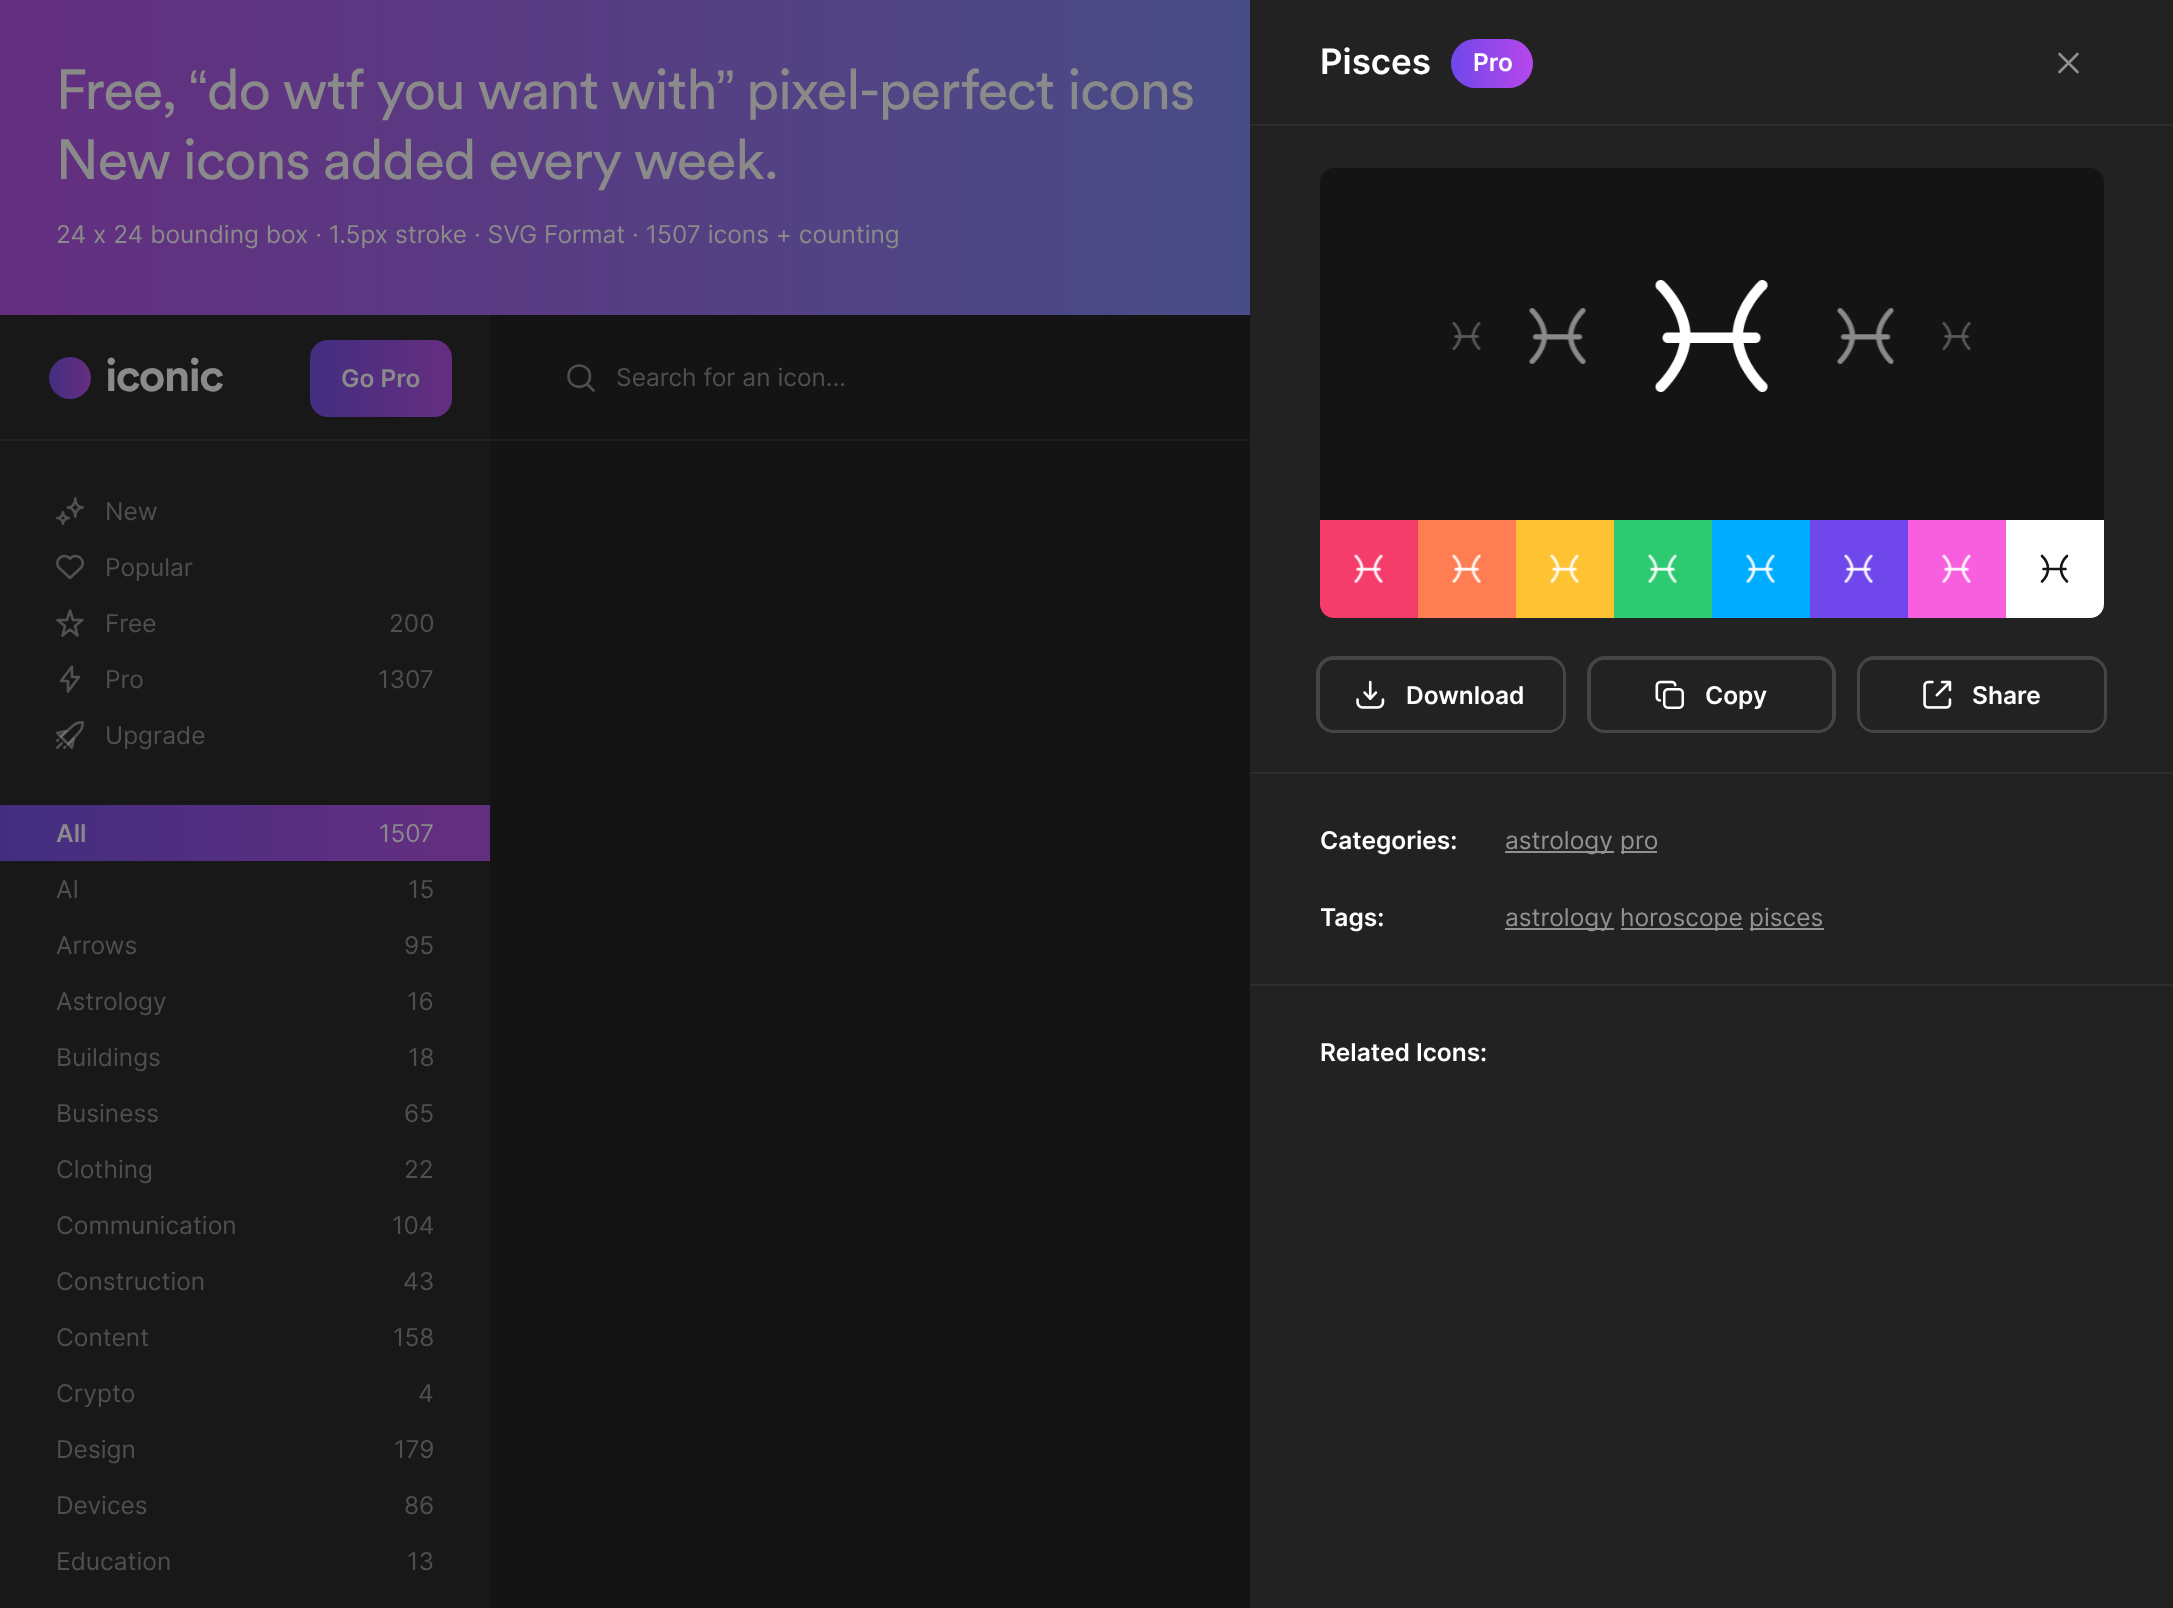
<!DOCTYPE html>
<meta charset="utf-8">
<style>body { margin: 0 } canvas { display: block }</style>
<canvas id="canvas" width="2173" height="1608"></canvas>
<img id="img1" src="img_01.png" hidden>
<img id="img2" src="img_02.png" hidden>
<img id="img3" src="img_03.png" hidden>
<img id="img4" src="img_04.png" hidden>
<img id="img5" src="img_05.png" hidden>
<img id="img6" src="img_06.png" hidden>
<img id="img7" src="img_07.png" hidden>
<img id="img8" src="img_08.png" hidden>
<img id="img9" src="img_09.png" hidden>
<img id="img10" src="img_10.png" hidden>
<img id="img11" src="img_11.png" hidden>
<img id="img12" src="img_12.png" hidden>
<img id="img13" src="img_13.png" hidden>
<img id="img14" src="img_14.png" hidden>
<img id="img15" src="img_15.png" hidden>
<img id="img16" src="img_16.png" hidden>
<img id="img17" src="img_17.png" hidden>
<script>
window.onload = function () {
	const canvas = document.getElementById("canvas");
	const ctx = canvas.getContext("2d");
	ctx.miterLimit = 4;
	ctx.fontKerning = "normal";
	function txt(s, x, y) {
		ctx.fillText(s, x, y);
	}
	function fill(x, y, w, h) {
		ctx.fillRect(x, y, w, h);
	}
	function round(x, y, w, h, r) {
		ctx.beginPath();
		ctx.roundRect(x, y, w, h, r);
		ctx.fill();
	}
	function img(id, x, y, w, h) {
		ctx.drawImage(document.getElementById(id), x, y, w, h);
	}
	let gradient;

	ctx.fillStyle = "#141414";
	fill(0, 0, 2173, 1608);
	gradient = ctx.createLinearGradient(0, 158, 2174, 157);
	gradient.addColorStop(0, "#642E80");
	gradient.addColorStop(0.95, "#36618A");
	ctx.fillStyle = gradient;
	fill(0, 0, 1250, 315);
	ctx.fillStyle = "#222222";
	fill(1250, 0, 923, 1608);
	ctx.fillStyle = "#2D2D2D";
	fill(1250, 124, 923, 2);
	gradient = ctx.createLinearGradient(1451, 63, 1533, 63);
	gradient.addColorStop(0, "#7047EB");
	gradient.addColorStop(0.95, "#B447EB");
	ctx.fillStyle = gradient;
	round(1451, 39, 82, 49, 24.5);
	ctx.beginPath();
	ctx.moveTo(2077.5, 54);
	ctx.lineTo(2059.5, 72);
	ctx.moveTo(2059.5, 54);
	ctx.lineTo(2077.5, 72);
	ctx.strokeStyle = "#919191";
	ctx.lineWidth = 2.6;
	ctx.lineCap = "round";
	ctx.lineJoin = "round";
	ctx.stroke();
	ctx.fillStyle = "#2D2D2D";
	fill(1250, 772, 923, 2);
	ctx.fillStyle = "#141414";
	round(1320, 168, 784, 450, 14);
	img("img1", 1452, 322, 29, 28);
	img("img2", 1529, 308, 57, 56);
	img("img3", 1655, 280, 113, 112);
	img("img4", 1837, 308, 57, 56);
	img("img1", 1942, 322, 29, 28);
	ctx.fillStyle = "#F53D6B";
	ctx.beginPath();
	ctx.roundRect(1320, 520, 98, 98, [0, 0, 0, 14]);
	ctx.fill();
	img("img5", 1354, 554, 29, 29);
	ctx.fillStyle = "#FF7D52";
	fill(1418, 520, 98, 98);
	img("img6", 1452, 554, 29, 29);
	ctx.fillStyle = "#FFC233";
	fill(1516, 520, 98, 98);
	img("img7", 1550, 554, 29, 29);
	ctx.fillStyle = "#2DCA72";
	fill(1614, 520, 98, 98);
	img("img8", 1648, 554, 29, 29);
	ctx.fillStyle = "#00ACFF";
	fill(1712, 520, 98, 98);
	img("img9", 1746, 554, 29, 29);
	ctx.fillStyle = "#7047EB";
	fill(1810, 520, 98, 98);
	img("img10", 1844, 554, 29, 29);
	ctx.fillStyle = "#F75FDE";
	fill(1908, 520, 98, 98);
	img("img11", 1942, 554, 29, 29);
	ctx.fillStyle = "#FFFFFF";
	ctx.beginPath();
	ctx.roundRect(2006, 520, 98, 98, [0, 0, 14, 0]);
	ctx.fill();
	ctx.beginPath();
	ctx.moveTo(2042, 556);
	ctx.bezierCurveTo(2050, 563.5, 2050, 574, 2042, 581.5);
	ctx.moveTo(2067, 556);
	ctx.bezierCurveTo(2059, 563.5, 2059, 574, 2067, 581.5);
	ctx.moveTo(2043.5, 569);
	ctx.lineTo(2065.5, 569);
	ctx.strokeStyle = "#141414";
	ctx.stroke();
	ctx.beginPath();
	ctx.roundRect(1318, 658, 246, 73, 16);
	ctx.strokeStyle = "#454545";
	ctx.lineWidth = 4;
	ctx.lineJoin = "miter";
	ctx.stroke();
	ctx.fillStyle = "#222222";
	round(1320, 660, 243, 70, 14);
	img("img12", 1356, 680, 29, 29);
	ctx.beginPath();
	ctx.roundRect(1589, 658, 245, 73, 16);
	ctx.stroke();
	round(1591, 660, 241, 70, 14);
	img("img13", 1655, 680, 29, 29);
	ctx.beginPath();
	ctx.roundRect(1859, 658, 246, 73, 16);
	ctx.stroke();
	round(1860, 660, 244, 70, 14);
	img("img14", 1923, 680, 29, 29);
	ctx.fillStyle = "#2D2D2D";
	fill(1250, 984, 923, 2);
	ctx.fillStyle = "#919191";
	fill(1505, 851, 109, 2);
	fill(1621, 851, 36, 2);
	fill(1505, 928, 109, 2);
	fill(1621, 928, 122, 2);
	fill(1750, 928, 74, 2);
	ctx.fillStyle = "#181818";
	fill(0, 315, 490, 124);
	ctx.fillStyle = "#212121";
	fill(0, 439, 490, 2);
	gradient = ctx.createLinearGradient(49, 378, 91, 378);
	gradient.addColorStop(0, "#422E80");
	gradient.addColorStop(0.95, "#642E80");
	ctx.fillStyle = gradient;
	ctx.beginPath();
	ctx.arc(70, 378, 21, 0, Math.PI * 2);
	ctx.fill();
	gradient = ctx.createLinearGradient(310, 378, 452, 378);
	gradient.addColorStop(0, "#422E80");
	gradient.addColorStop(0.95, "#642E80");
	ctx.fillStyle = gradient;
	round(310, 340, 142, 77, 18);
	ctx.fillStyle = "#1E1E1E";
	fill(490, 439, 760, 2);
	ctx.beginPath();
	ctx.moveTo(593.5, 390.5);
	ctx.lineTo(587, 384);
	ctx.moveTo(568.5, 376);
	ctx.bezierCurveTo(568.5, 362, 590, 362, 590, 376);
	ctx.bezierCurveTo(590, 390.5, 568.5, 390.5, 568.5, 376);
	ctx.closePath();
	ctx.strokeStyle = "#4F4F4F";
	ctx.lineWidth = 2.6;
	ctx.lineJoin = "round";
	ctx.stroke();
	ctx.fillStyle = "#181818";
	fill(0, 441, 490, 1167);
	img("img15", 56, 497, 28, 28);
	img("img16", 56, 554, 28, 26);
	ctx.beginPath();
	ctx.moveTo(70, 610.5);
	ctx.lineTo(73, 620);
	ctx.lineTo(82.5, 620);
	ctx.lineTo(75, 626);
	ctx.lineTo(77.5, 635.5);
	ctx.lineTo(70, 629.5);
	ctx.lineTo(62.5, 635.5);
	ctx.lineTo(65, 626);
	ctx.lineTo(57.5, 620);
	ctx.lineTo(67, 620);
	ctx.closePath();
	ctx.strokeStyle = "#515151";
	ctx.stroke();
	ctx.beginPath();
	ctx.moveTo(68, 681);
	ctx.lineTo(61, 681);
	ctx.lineTo(72, 666.5);
	ctx.lineTo(72, 677);
	ctx.lineTo(79, 677);
	ctx.lineTo(68, 691.5);
	ctx.closePath();
	ctx.stroke();
	img("img17", 56, 721, 28, 28);
	gradient = ctx.createLinearGradient(0, 833, 490, 833);
	gradient.addColorStop(0, "#422E80");
	gradient.addColorStop(0.95, "#642E80");
	ctx.fillStyle = gradient;
	fill(0, 805, 490, 56);
	ctx.letterSpacing = "-1.1px";
	ctx.font = "56px Circular";
	ctx.fillStyle = "#8A8A8A";
	txt("Free,", 56, 109);
	ctx.font = "56px Liberation Sans";
	txt("“", 189, 109);
	ctx.font = "56px Circular";
	txt("do wtf you want with", 207, 109);
	ctx.font = "56px Liberation Sans";
	txt("”", 716, 109);
	ctx.font = "56px Circular";
	txt("pixel-perfect icons", 746, 109);
	txt("New icons added every week.", 56, 179);
	ctx.letterSpacing = "0px";
	ctx.font = "24.5px Inter";
	txt("24 x 24 bounding box · 1.5px stroke · SVG Format · 1507 icons + counting", 56, 243);
	ctx.font = "600 35px Inter";
	ctx.fillStyle = "#FFFFFF";
	txt("Pisces", 1320, 74);
	ctx.font = "600 24.5px Inter";
	txt("Pro", 1473, 71);
	txt("Download", 1406, 704);
	txt("Copy", 1705, 704);
	txt("Share", 1972, 704);
	txt("Categories:", 1320, 849);
	ctx.font = "24.5px Inter";
	ctx.fillStyle = "#929292";
	txt("astrology", 1505, 849);
	txt("pro", 1620, 849);
	ctx.font = "600 24.5px Inter";
	ctx.fillStyle = "#FFFFFF";
	txt("Tags:", 1320, 926);
	ctx.font = "24.5px Inter";
	ctx.fillStyle = "#929292";
	txt("astrology", 1505, 926);
	txt("horoscope", 1620, 926);
	txt("pisces", 1749, 926);
	ctx.font = "600 24.5px Inter";
	ctx.fillStyle = "#FFFFFF";
	txt("Related Icons:", 1320, 1061);
	ctx.letterSpacing = "-1.75px";
	ctx.font = "bold 45.5px Circular";
	ctx.fillStyle = "#8A8A8A";
	txt("iconic", 105, 391);
	ctx.letterSpacing = "0px";
	ctx.font = "600 24.5px Inter";
	txt("Go Pro", 341, 387);
	ctx.font = "24.5px Inter";
	ctx.fillStyle = "#4F4F4F";
	txt("Search for an icon...", 616, 386);
	txt("New", 105, 520);
	txt("Popular", 105, 576);
	txt("Free", 105, 632);
	txt("200", 389, 632);
	txt("Pro", 105, 688);
	txt("1307", 378, 688);
	txt("Upgrade", 105, 744);
	ctx.font = "600 24.5px Inter";
	ctx.fillStyle = "#8A8A8A";
	txt("All", 56, 842);
	ctx.font = "24.5px Inter";
	txt("1507", 379, 842);
	ctx.fillStyle = "#4F4F4F";
	txt("AI", 56, 898);
	txt("15", 408, 898);
	txt("Arrows", 56, 954);
	txt("95", 404, 954);
	txt("Astrology", 56, 1010);
	txt("16", 407, 1010);
	txt("Buildings", 56, 1066);
	txt("18", 408, 1066);
	txt("Business", 56, 1122);
	txt("65", 404, 1122);
	txt("Clothing", 56, 1178);
	txt("22", 404, 1178);
	txt("Communication", 56, 1234);
	txt("104", 392, 1234);
	txt("Construction", 56, 1290);
	txt("43", 403, 1290);
	txt("Content", 56, 1346);
	txt("158", 393, 1346);
	txt("Crypto", 56, 1402);
	txt("4", 418, 1402);
	txt("Design", 56, 1458);
	txt("179", 394, 1458);
	txt("Devices", 56, 1514);
	txt("86", 404, 1514);
	txt("Education", 56, 1570);
	txt("13", 407, 1570);
};
</script>
